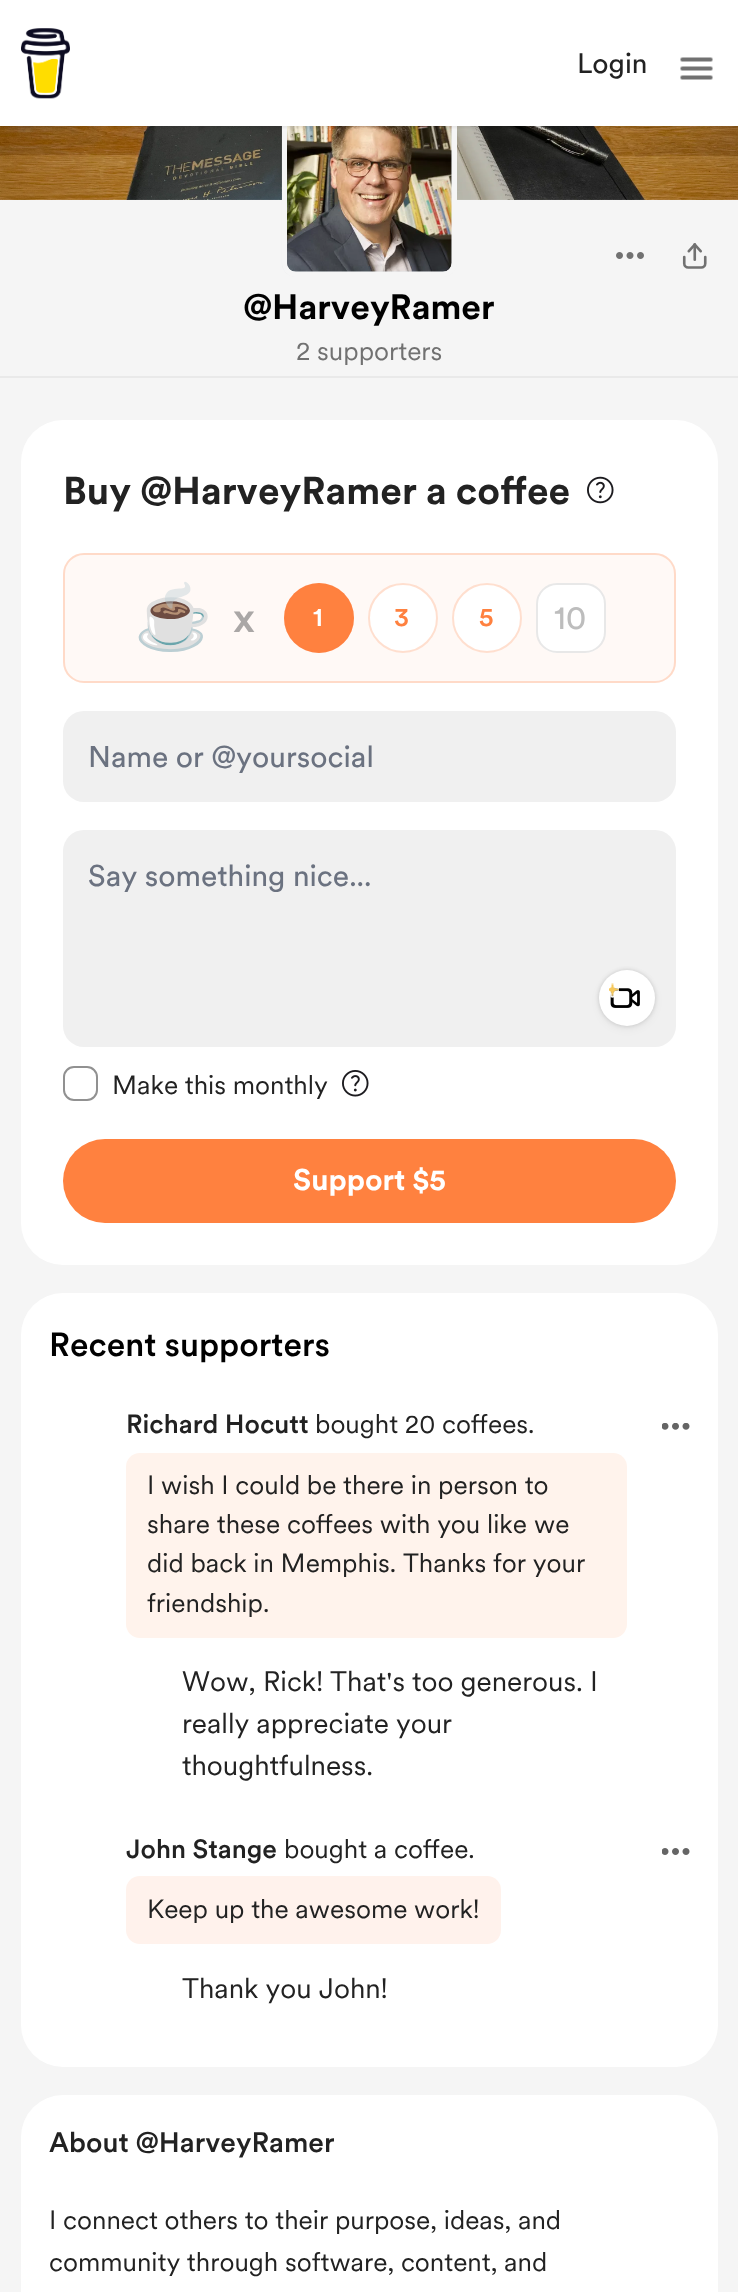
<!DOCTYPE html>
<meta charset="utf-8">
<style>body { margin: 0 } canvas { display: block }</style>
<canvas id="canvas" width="738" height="2292"></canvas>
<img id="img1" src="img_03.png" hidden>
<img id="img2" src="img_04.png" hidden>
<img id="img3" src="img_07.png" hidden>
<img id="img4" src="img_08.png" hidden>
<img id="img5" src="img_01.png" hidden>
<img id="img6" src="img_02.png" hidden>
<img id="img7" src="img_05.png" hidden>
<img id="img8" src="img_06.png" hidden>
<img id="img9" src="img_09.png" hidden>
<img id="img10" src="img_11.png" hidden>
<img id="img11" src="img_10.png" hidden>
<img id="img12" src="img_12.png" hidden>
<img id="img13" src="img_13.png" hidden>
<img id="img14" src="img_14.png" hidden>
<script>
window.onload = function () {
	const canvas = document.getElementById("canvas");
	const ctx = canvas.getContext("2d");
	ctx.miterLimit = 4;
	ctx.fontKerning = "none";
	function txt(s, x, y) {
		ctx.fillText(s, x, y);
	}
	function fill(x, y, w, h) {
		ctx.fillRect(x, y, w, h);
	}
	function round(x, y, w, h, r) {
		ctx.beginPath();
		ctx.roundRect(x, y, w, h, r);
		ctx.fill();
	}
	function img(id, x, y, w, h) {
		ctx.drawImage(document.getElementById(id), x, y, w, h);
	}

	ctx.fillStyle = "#F5F5F5";
	fill(0, 0, 738, 2292);
	img("img1", 0, 126, 738, 74);
	img("img2", 0, 199, 738, 1);
	img("img3", 281, 126, 176, 151);
	ctx.beginPath();
	ctx.roundRect(284.5, 104.5, 170, 170, 11.5);
	ctx.strokeStyle = "#F5F5F5";
	ctx.lineWidth = 5;
	ctx.stroke();
	img("img4", 287, 126, 165, 146);
	ctx.fillStyle = "rgba(0, 0, 0, 0.06)";
	ctx.filter = "blur(1px)";
	ctx.beginPath();
	ctx.rect(0, 2, 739, 126);
	ctx.fill();
	ctx.filter = "none";
	ctx.fillStyle = "#FFFFFF";
	fill(0, 0, 738, 126);
	img("img5", 21, 28, 49, 71);
	img("img6", 680, 57, 33, 23);
	img("img7", 616, 252, 28, 7);
	img("img8", 682, 243, 25, 26);
	ctx.fillStyle = "#E9E9E9";
	fill(0, 376, 738, 2);
	ctx.fillStyle = "#FFFFFF";
	round(21, 420, 697, 845, 42);
	img("img9", 587, 476, 27, 28);
	ctx.fillStyle = "#FFF9F6";
	round(63, 553, 613, 130, 21);
	ctx.beginPath();
	ctx.roundRect(64, 554, 611, 128, 20);
	ctx.strokeStyle = "rgba(255, 129, 63, 0.25)";
	ctx.lineWidth = 2;
	ctx.stroke();
	ctx.fillStyle = "#FF813F";
	ctx.beginPath();
	ctx.arc(319, 618, 35, 0, Math.PI * 2);
	ctx.fill();
	ctx.beginPath();
	ctx.arc(319, 618, 34, 0, Math.PI * 2);
	ctx.stroke();
	ctx.fillStyle = "#FFFFFF";
	ctx.beginPath();
	ctx.arc(403, 618, 35, 0, Math.PI * 2);
	ctx.fill();
	ctx.beginPath();
	ctx.arc(403, 618, 34, 0, Math.PI * 2);
	ctx.stroke();
	ctx.beginPath();
	ctx.arc(487, 618, 35, 0, Math.PI * 2);
	ctx.fill();
	ctx.beginPath();
	ctx.arc(487, 618, 34, 0, Math.PI * 2);
	ctx.stroke();
	round(536, 583, 70, 70, 21);
	ctx.beginPath();
	ctx.roundRect(537, 584, 68, 68, 20);
	ctx.strokeStyle = "rgba(34, 34, 34, 0.1)";
	ctx.stroke();
	ctx.fillStyle = "#F0F0F0";
	round(63, 711, 613, 91, 21);
	round(63, 830, 613, 217, 21);
	ctx.fillStyle = "rgba(0, 0, 0, 0.05)";
	ctx.filter = "blur(4.5px)";
	ctx.beginPath();
	ctx.roundRect(599, 973, 56, 56, 28);
	ctx.fill();
	ctx.filter = "none";
	ctx.fillStyle = "rgba(0, 0, 0, 0.15)";
	ctx.filter = "blur(2px)";
	ctx.beginPath();
	ctx.roundRect(599, 970, 56, 56, 28);
	ctx.fill();
	ctx.filter = "none";
	ctx.fillStyle = "#FFFFFF";
	ctx.beginPath();
	ctx.arc(627, 998, 28, 0, Math.PI * 2);
	ctx.fill();
	img("img10", 610, 988, 30, 20);
	img("img11", 609, 983, 10, 15);
	ctx.beginPath();
	ctx.roundRect(64, 1067, 33, 33, 10);
	ctx.strokeStyle = "#919191";
	ctx.stroke();
	img("img12", 342, 1070, 27, 27);
	ctx.fillStyle = "#FF813F";
	round(63, 1139, 613, 84, 42);
	ctx.fillStyle = "#FFFFFF";
	round(21, 1293, 697, 774, 42);
	ctx.fillStyle = "#FFF3EC";
	round(126, 1453, 501, 185, 14);
	img("img13", 662, 1423, 28, 7);
	ctx.fillStyle = "#FFF2EC";
	round(126, 1876, 375, 68, 14);
	img("img14", 662, 1848, 28, 7);
	ctx.fillStyle = "#FFFFFF";
	round(21, 2095, 697, 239, 42);
	ctx.font = "28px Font";
	ctx.fillStyle = "#222222";
	txt("Login", 577, 73);
	ctx.font = "bold 35px Font";
	ctx.fillStyle = "#000000";
	txt("@HarveyRamer", 243, 319);
	ctx.font = "26.25px 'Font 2'";
	ctx.fillStyle = "#717171";
	txt("2 supporters", 296, 360);
	ctx.font = "bold 38.5px Font";
	ctx.fillStyle = "#222222";
	txt("Buy @HarveyRamer a coffee", 63, 504);
	ctx.font = "63px Noto Color Emoji";
	ctx.fillStyle = "#000000";
	txt("☕", 134, 639);
	ctx.font = "500 42px Font";
	ctx.fillStyle = "#AAA7A6";
	txt("x", 233, 632);
	ctx.font = "500 26.25px Font";
	ctx.fillStyle = "#FFFFFF";
	txt("1", 313, 626);
	ctx.fillStyle = "#FF813F";
	txt("3", 394, 626);
	txt("5", 479, 626);
	ctx.font = "33.25px Font";
	ctx.fillStyle = "#BDBDBD";
	txt("10", 554, 629);
	ctx.font = "29.75px Font";
	ctx.fillStyle = "#6B7280";
	txt("Name or @yoursocial", 88, 767);
	txt("Say something nice...", 88, 886);
	ctx.font = "26.25px 'Font 2'";
	ctx.fillStyle = "#222222";
	txt("Make this monthly", 112, 1094);
	ctx.font = "bold 29.75px Font";
	ctx.fillStyle = "#FFFFFF";
	txt("Support $5", 293, 1190);
	ctx.font = "500 33.25px Font";
	ctx.fillStyle = "#000000";
	txt("Recent supporters", 49, 1356);
	ctx.font = "500 26.25px Font";
	ctx.fillStyle = "#222222";
	txt("Richard Hocutt", 126, 1433);
	ctx.font = "26.25px 'Font 2'";
	txt("bought 20 coffees.", 315, 1433);
	txt("I wish I could be there in person to", 147, 1494);
	txt("share these coffees with you like", 147, 1533);
	txt("we", 534, 1533);
	txt("did back in Memphis. Thanks for your", 147, 1572);
	txt("friendship.", 147, 1612);
	ctx.font = "28px 'Font 2'";
	txt("Wow, Rick! That's", 182, 1691);
	txt("too generous. I", 412, 1691);
	txt("really appreciate your", 182, 1733);
	txt("thoughtfulness.", 182, 1775);
	ctx.font = "500 26.25px Font";
	txt("John Stange", 126, 1858);
	ctx.font = "26.25px 'Font 2'";
	txt("bought a coffee.", 284, 1858);
	txt("Keep up the awesome work!", 147, 1918);
	ctx.font = "28px 'Font 2'";
	txt("Thank you John!", 182, 1998);
	ctx.font = "500 28px Font";
	txt("About @HarveyRamer", 49, 2152);
	ctx.font = "26.25px 'Font 2'";
	txt("I connect others to their purpose, ideas, and", 49, 2229);
	txt("community through software, content, and", 49, 2271);
};
</script>
